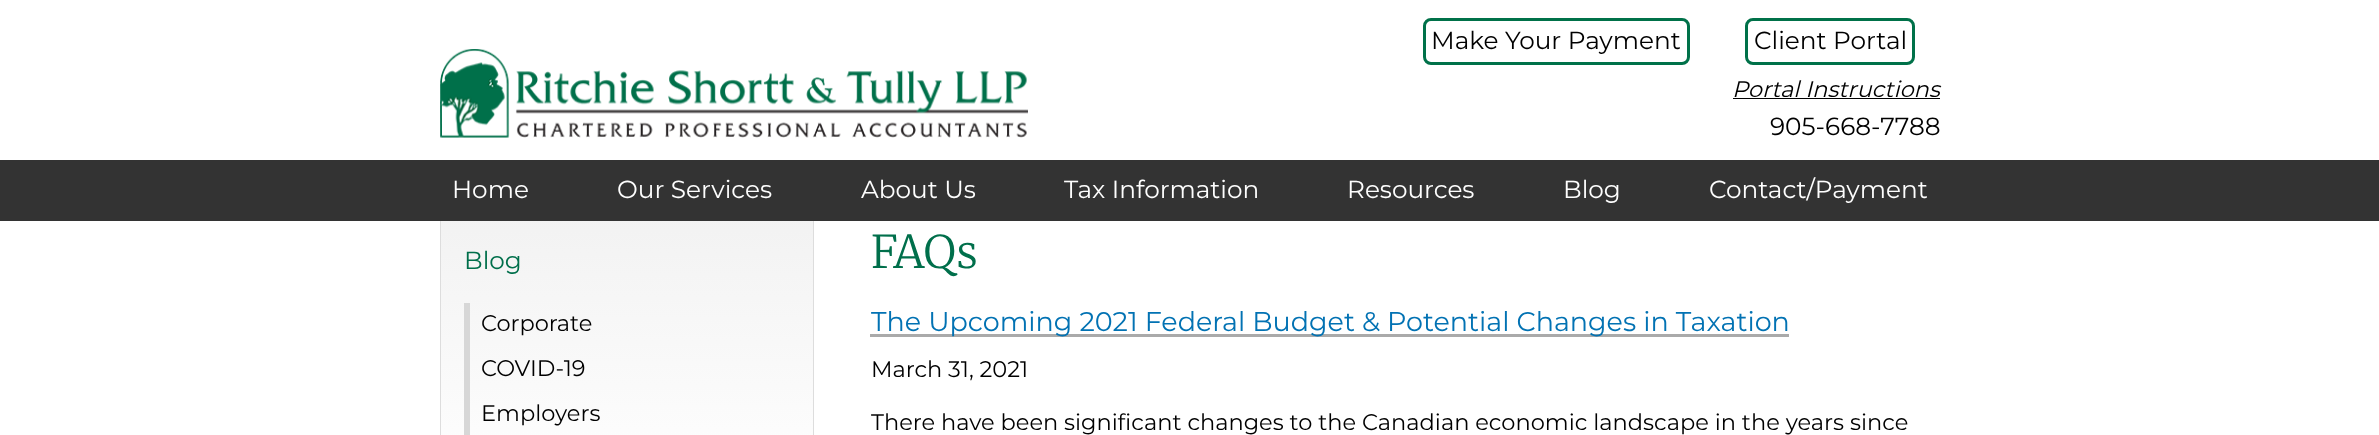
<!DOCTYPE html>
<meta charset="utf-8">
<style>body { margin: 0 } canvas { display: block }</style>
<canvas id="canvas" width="2379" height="435"></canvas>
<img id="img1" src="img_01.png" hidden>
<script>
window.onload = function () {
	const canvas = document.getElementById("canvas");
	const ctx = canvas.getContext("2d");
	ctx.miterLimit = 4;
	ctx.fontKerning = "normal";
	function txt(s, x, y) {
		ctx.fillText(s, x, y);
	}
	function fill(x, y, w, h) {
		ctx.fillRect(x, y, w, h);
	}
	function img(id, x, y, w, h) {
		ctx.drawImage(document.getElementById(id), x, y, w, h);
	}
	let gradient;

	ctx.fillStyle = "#FFFFFF";
	fill(0, 0, 2379, 435);
	img("img1", 440, 49, 588, 89);
	ctx.beginPath();
	ctx.roundRect(1424.5, 19.5, 264, 44, 6.5);
	ctx.strokeStyle = "#007149";
	ctx.lineWidth = 3;
	ctx.stroke();
	ctx.beginPath();
	ctx.roundRect(1746.5, 19.5, 167, 44, 6.5);
	ctx.stroke();
	ctx.fillStyle = "#000000";
	fill(1733, 98, 207, 1);
	gradient = ctx.createLinearGradient(627, 209, 627, 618);
	gradient.addColorStop(0, "#F2F2F2");
	gradient.addColorStop(0.7, "#FFFFFF");
	gradient.addColorStop(1, "#FFFFFF");
	ctx.fillStyle = gradient;
	fill(441, 221, 372, 214);
	ctx.strokeStyle = "#DDDDDD";
	ctx.lineWidth = 1;
	ctx.strokeRect(440.5, 208.5, 373, 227);
	ctx.fillStyle = "#333333";
	fill(0, 160, 2379, 61);
	ctx.fillStyle = "#D7D7D7";
	fill(464, 303, 6, 132);
	ctx.fillStyle = "#AAAAAA";
	fill(870, 334, 919, 3);
	ctx.font = "24.75px Montserrat";
	ctx.fillStyle = "#000000";
	txt("Make Your Payment", 1431, 49);
	txt("Client Portal", 1754, 49);
	ctx.font = "italic 22.5px Montserrat";
	txt("Portal Instructions", 1732, 97);
	ctx.font = "24.75px Montserrat";
	txt("905-668-7788", 1770, 135);
	ctx.fillStyle = "#FEFEFE";
	txt("Home", 452, 198);
	txt("Our Services", 617, 198);
	txt("About Us", 861, 198);
	txt("Tax Information", 1064, 198);
	txt("Resources", 1347, 198);
	txt("Blog", 1563, 198);
	txt("Contact/Payment", 1709, 198);
	ctx.fillStyle = "#006F4B";
	txt("Blog", 464, 269);
	ctx.font = "22.5px Montserrat";
	ctx.fillStyle = "#000000";
	txt("Corporate", 481, 331);
	txt("COVID-19", 481, 376);
	txt("Employers", 481, 421);
	ctx.font = "300 45px Merriweather";
	ctx.fillStyle = "#006F4B";
	txt("FAQs", 871, 268);
	ctx.font = "27px Montserrat";
	ctx.fillStyle = "#0272B3";
	txt("The Upcoming 2021 Federal Budget & Potential Changes in Taxation", 871, 331);
	ctx.font = "22.5px Montserrat";
	ctx.fillStyle = "#000000";
	txt("March 31, 2021", 871, 377);
	txt("There have been significant changes to the Canadian economic landscape in the years since", 871, 430);
};
</script>
